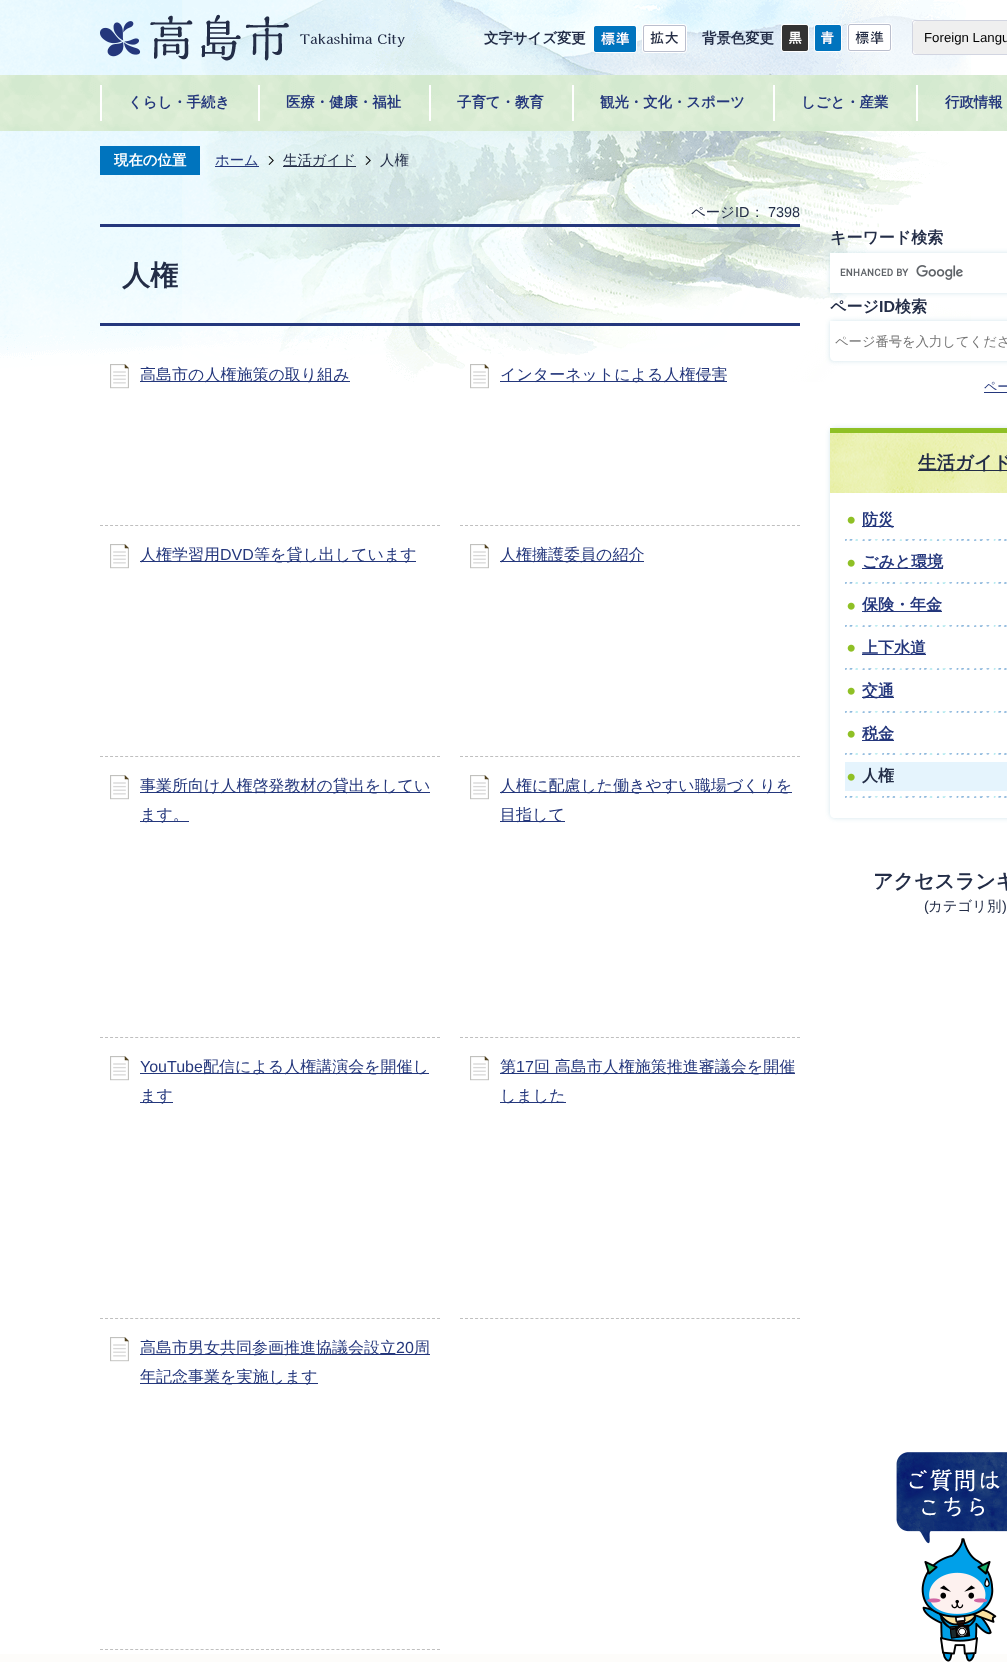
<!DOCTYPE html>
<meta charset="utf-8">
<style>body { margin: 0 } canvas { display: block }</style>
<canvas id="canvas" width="1007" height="1662"></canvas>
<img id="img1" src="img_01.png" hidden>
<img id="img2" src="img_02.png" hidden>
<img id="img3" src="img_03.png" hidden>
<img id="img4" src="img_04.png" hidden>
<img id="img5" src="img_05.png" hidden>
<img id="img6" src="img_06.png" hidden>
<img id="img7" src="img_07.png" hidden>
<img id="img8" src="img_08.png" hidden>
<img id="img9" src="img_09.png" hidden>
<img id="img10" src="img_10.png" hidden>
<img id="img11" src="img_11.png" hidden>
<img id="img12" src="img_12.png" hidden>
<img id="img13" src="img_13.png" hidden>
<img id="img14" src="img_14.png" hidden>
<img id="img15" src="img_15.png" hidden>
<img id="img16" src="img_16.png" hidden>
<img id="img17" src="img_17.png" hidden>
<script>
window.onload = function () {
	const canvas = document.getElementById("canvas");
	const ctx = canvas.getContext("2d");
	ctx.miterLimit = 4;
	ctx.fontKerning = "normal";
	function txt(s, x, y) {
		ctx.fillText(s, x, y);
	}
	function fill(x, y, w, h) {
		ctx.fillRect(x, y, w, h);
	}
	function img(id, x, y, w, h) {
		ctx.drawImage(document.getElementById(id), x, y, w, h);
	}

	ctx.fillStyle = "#FFFFFF";
	fill(0, 0, 1007, 1662);
	img("img1", 0, 0, 971, 382);
	img("img2", 100, 14, 305, 47);
	img("img3", 593, 25, 44, 28);
	img("img4", 642, 24, 45, 29);
	img("img5", 781, 24, 28, 28);
	img("img6", 814, 24, 28, 28);
	img("img7", 847, 23, 45, 29);
	fill(912, 20, 6, 35);
	ctx.beginPath();
	ctx.roundRect(912.5, 20.5, 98, 34, 2.5);
	ctx.strokeStyle = "#D2D5E1";
	ctx.stroke();
	ctx.fillStyle = "#EFEFEF";
	ctx.beginPath();
	ctx.moveTo(918, 21);
	ctx.lineTo(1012, 21);
	ctx.lineTo(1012, 54);
	ctx.lineTo(918, 54);
	ctx.bezierCurveTo(915, 54, 913, 52, 913, 49);
	ctx.lineTo(913, 26);
	ctx.bezierCurveTo(913, 23, 915, 21, 918, 21);
	ctx.closePath();
	ctx.fill();
	img("img8", 0, 75, 1007, 56);
	ctx.fillStyle = "#FFFFFF";
	fill(100, 85, 2, 36);
	fill(258, 85, 2, 36);
	fill(429, 85, 2, 36);
	fill(572, 85, 2, 36);
	fill(773, 85, 2, 36);
	fill(916, 85, 2, 36);
	ctx.fillStyle = "#0074BE";
	fill(100, 146, 100, 29);
	ctx.fillStyle = "#24377C";
	fill(215, 166, 44, 1);
	img("img9", 268, 156, 6, 9);
	ctx.fillStyle = "#232D47";
	fill(283, 166, 73, 1);
	img("img10", 365, 156, 6, 9);
	ctx.fillStyle = "#24377C";
	fill(100, 224, 700, 3);
	fill(100, 323, 700, 3);
	img("img11", 110, 364, 19, 25);
	ctx.beginPath();
	ctx.moveTo(100, 525.5);
	ctx.lineTo(440, 525.5);
	ctx.strokeStyle = "#BFBFBF";
	ctx.setLineDash([3, 2.03]);
	ctx.stroke();
	fill(140, 381, 210, 1);
	img("img11", 470, 364, 19, 25);
	ctx.beginPath();
	ctx.moveTo(460, 525.5);
	ctx.lineTo(800, 525.5);
	ctx.stroke();
	fill(500, 381, 227, 1);
	img("img11", 110, 544, 19, 25);
	ctx.beginPath();
	ctx.moveTo(100, 756.5);
	ctx.lineTo(440, 756.5);
	ctx.stroke();
	fill(140, 561, 276, 1);
	img("img11", 470, 544, 19, 25);
	ctx.beginPath();
	ctx.moveTo(460, 756.5);
	ctx.lineTo(800, 756.5);
	ctx.stroke();
	fill(500, 561, 144, 1);
	img("img11", 110, 775, 19, 25);
	ctx.beginPath();
	ctx.moveTo(100, 1037.5);
	ctx.lineTo(440, 1037.5);
	ctx.stroke();
	fill(140, 792, 290, 1);
	fill(140, 821, 49, 1);
	img("img11", 470, 775, 19, 25);
	ctx.beginPath();
	ctx.moveTo(460, 1037.5);
	ctx.lineTo(800, 1037.5);
	ctx.stroke();
	fill(500, 792, 292, 1);
	fill(500, 821, 65, 1);
	img("img11", 110, 1056, 19, 25);
	ctx.beginPath();
	ctx.moveTo(100, 1318.5);
	ctx.lineTo(440, 1318.5);
	ctx.stroke();
	fill(140, 1073, 289, 1);
	fill(140, 1102, 33, 1);
	img("img11", 470, 1056, 19, 25);
	ctx.beginPath();
	ctx.moveTo(460, 1318.5);
	ctx.lineTo(800, 1318.5);
	ctx.stroke();
	fill(500, 1073, 295, 1);
	fill(500, 1102, 66, 1);
	img("img11", 110, 1337, 19, 25);
	ctx.beginPath();
	ctx.moveTo(100, 1649.5);
	ctx.lineTo(440, 1649.5);
	ctx.stroke();
	fill(140, 1354, 290, 1);
	fill(140, 1383, 178, 1);
	ctx.fillStyle = "rgba(30, 128, 166, 0.2)";
	ctx.filter = "blur(2.5px)";
	ctx.beginPath();
	ctx.roundRect(830, 253, 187, 40, 2);
	ctx.fill();
	ctx.filter = "none";
	ctx.fillStyle = "#FFFFFF";
	fill(830, 253, 177, 40);
	img("img12", 840, 265, 123, 15);
	ctx.fillStyle = "rgba(30, 128, 166, 0.2)";
	ctx.filter = "blur(2.5px)";
	ctx.beginPath();
	ctx.roundRect(830, 321, 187, 40, 2);
	ctx.fill();
	ctx.filter = "none";
	ctx.fillStyle = "#FFFFFF";
	ctx.beginPath();
	ctx.moveTo(830, 321);
	ctx.lineTo(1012, 321);
	ctx.lineTo(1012, 361);
	ctx.lineTo(835, 361);
	ctx.bezierCurveTo(832, 361, 830, 359, 830, 356);
	ctx.closePath();
	ctx.fill();
	ctx.fillStyle = "#24377C";
	fill(984, 392, 23, 1);
	ctx.fillStyle = "rgba(30, 128, 166, 0.2)";
	ctx.filter = "blur(2.5px)";
	ctx.beginPath();
	ctx.roundRect(830, 428, 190, 390, 5);
	ctx.fill();
	ctx.filter = "none";
	ctx.fillStyle = "#FFFFFF";
	ctx.beginPath();
	ctx.moveTo(830, 428);
	ctx.lineTo(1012, 428);
	ctx.lineTo(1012, 813);
	ctx.bezierCurveTo(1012, 816, 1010, 818, 1007, 818);
	ctx.lineTo(835, 818);
	ctx.bezierCurveTo(832, 818, 830, 816, 830, 813);
	ctx.closePath();
	ctx.fill();
	ctx.fillStyle = "#8FC025";
	fill(830, 428, 177, 5);
	img("img13", 830, 433, 177, 60);
	ctx.fillStyle = "#232D47";
	fill(918, 470, 89, 1);
	img("img14", 845, 539, 162, 2);
	img("img15", 847, 516, 8, 8);
	ctx.fillStyle = "#24377C";
	fill(862, 526, 32, 1);
	img("img14", 845, 582, 162, 2);
	img("img15", 847, 559, 8, 8);
	fill(862, 568, 81, 1);
	img("img14", 845, 625, 162, 2);
	img("img15", 847, 602, 8, 8);
	fill(862, 611, 80, 1);
	img("img14", 845, 668, 162, 2);
	img("img15", 847, 644, 8, 8);
	fill(862, 654, 64, 1);
	img("img14", 845, 711, 162, 2);
	img("img15", 847, 687, 8, 8);
	fill(862, 697, 32, 1);
	img("img14", 845, 753, 162, 2);
	img("img15", 847, 730, 8, 8);
	fill(862, 740, 32, 1);
	img("img14", 845, 796, 162, 2);
	ctx.fillStyle = "#E5F4FD";
	fill(845, 762, 162, 29);
	img("img16", 847, 773, 8, 8);
	ctx.fillStyle = "#FDFCFA";
	fill(0, 1654, 1007, 8);
	img("img17", 896, 1452, 111, 210);
	ctx.font = "bold 14.4px WenQuanYi Zen Hei";
	ctx.fillStyle = "#232D47";
	txt("文字サイズ変更", 484, 43);
	txt("背景色変更", 702, 43);
	ctx.font = "13.25px Liberation Sans";
	ctx.fillStyle = "#000000";
	txt("Foreign Langu", 924, 42);
	ctx.font = "bold 14.4px WenQuanYi Zen Hei";
	ctx.fillStyle = "#24377C";
	txt("くらし・手続き", 128, 107);
	txt("医療・健康・福祉", 286, 107);
	txt("子育て・教育", 457, 107);
	txt("観光・文化・スポーツ", 600, 107);
	txt("しごと・産業", 801, 107);
	txt("行政情報", 945, 107);
	ctx.fillStyle = "#FFFFFF";
	txt("現在の位置", 114, 165);
	ctx.font = "500 14.4px WenQuanYi Zen Hei";
	ctx.fillStyle = "#24377C";
	txt("ホーム", 215, 165);
	ctx.fillStyle = "#232D47";
	txt("生活ガイド", 283, 165);
	txt("人権", 380, 165);
	txt("ページ", 691, 217);
	ctx.font = "14.4px Liberation Sans";
	txt("ID", 735, 217);
	ctx.font = "500 14.4px WenQuanYi Zen Hei";
	txt("：", 750, 217);
	ctx.font = "14.4px Liberation Sans";
	txt("7398", 768, 217);
	ctx.font = "bold 28px WenQuanYi Zen Hei";
	txt("人権", 122, 285);
	ctx.font = "500 16px WenQuanYi Zen Hei";
	ctx.fillStyle = "#24377C";
	txt("高島市の人権施策の取り組み", 140, 380);
	txt("インターネットによる人権侵害", 500, 380);
	txt("人権学習用", 140, 560);
	ctx.font = "16px Liberation Sans";
	txt("DVD", 220, 560);
	ctx.font = "500 16px WenQuanYi Zen Hei";
	txt("等を貸し出しています", 254, 560);
	txt("人権擁護委員の紹介", 500, 560);
	txt("事業所向け人権啓発教材の貸出をしてい", 140, 791);
	txt("ます。", 140, 820);
	txt("人権に配慮した働きやすい職場づくりを", 500, 791);
	txt("目指して", 500, 820);
	ctx.font = "16px Liberation Sans";
	txt("YouTube", 140, 1072);
	ctx.font = "500 16px WenQuanYi Zen Hei";
	txt("配信による人権講演会を開催し", 203, 1072);
	txt("ます", 140, 1101);
	txt("第", 500, 1072);
	ctx.font = "16px Liberation Sans";
	txt("17", 516, 1072);
	ctx.font = "500 16px WenQuanYi Zen Hei";
	txt("回 高島市人権施策推進審議会を開催", 534, 1072);
	txt("しました", 500, 1101);
	txt("高島市男女共同参画推進協議会設立", 140, 1353);
	ctx.font = "16px Liberation Sans";
	txt("20", 396, 1353);
	ctx.font = "500 16px WenQuanYi Zen Hei";
	txt("周", 414, 1353);
	txt("年記念事業を実施します", 140, 1382);
	ctx.font = "bold 16px WenQuanYi Zen Hei";
	ctx.fillStyle = "#232D47";
	txt("キーワード検索", 830, 243);
	txt("ページ", 830, 312);
	ctx.font = "bold 16px Liberation Sans";
	txt("ID", 879, 312);
	ctx.font = "bold 16px WenQuanYi Zen Hei";
	txt("検索", 895, 312);
	ctx.font = "500 13.3px WenQuanYi Zen Hei";
	ctx.fillStyle = "#757575";
	txt("ページ番号を入力してくださ", 835, 346);
	ctx.font = "500 13px WenQuanYi Zen Hei";
	ctx.fillStyle = "#24377C";
	txt("ペー", 984, 391);
	ctx.font = "bold 18.5px WenQuanYi Zen Hei";
	ctx.fillStyle = "#232D47";
	txt("生活ガイド", 918, 469);
	ctx.font = "bold 16px WenQuanYi Zen Hei";
	ctx.fillStyle = "#24377C";
	txt("防災", 862, 525);
	txt("ごみと環境", 862, 567);
	txt("保険・年金", 862, 610);
	txt("上下水道", 862, 653);
	txt("交通", 862, 696);
	txt("税金", 862, 739);
	ctx.fillStyle = "#232D47";
	txt("人権", 862, 781);
	ctx.font = "bold 20px WenQuanYi Zen Hei";
	txt("アクセスランキ", 873, 888);
	ctx.font = "14.4px Liberation Sans";
	txt("(", 924, 911);
	ctx.font = "500 14.4px WenQuanYi Zen Hei";
	txt("カテゴリ別", 928, 911);
	ctx.font = "14.4px Liberation Sans";
	txt(")", 1002, 911);
};
</script>
